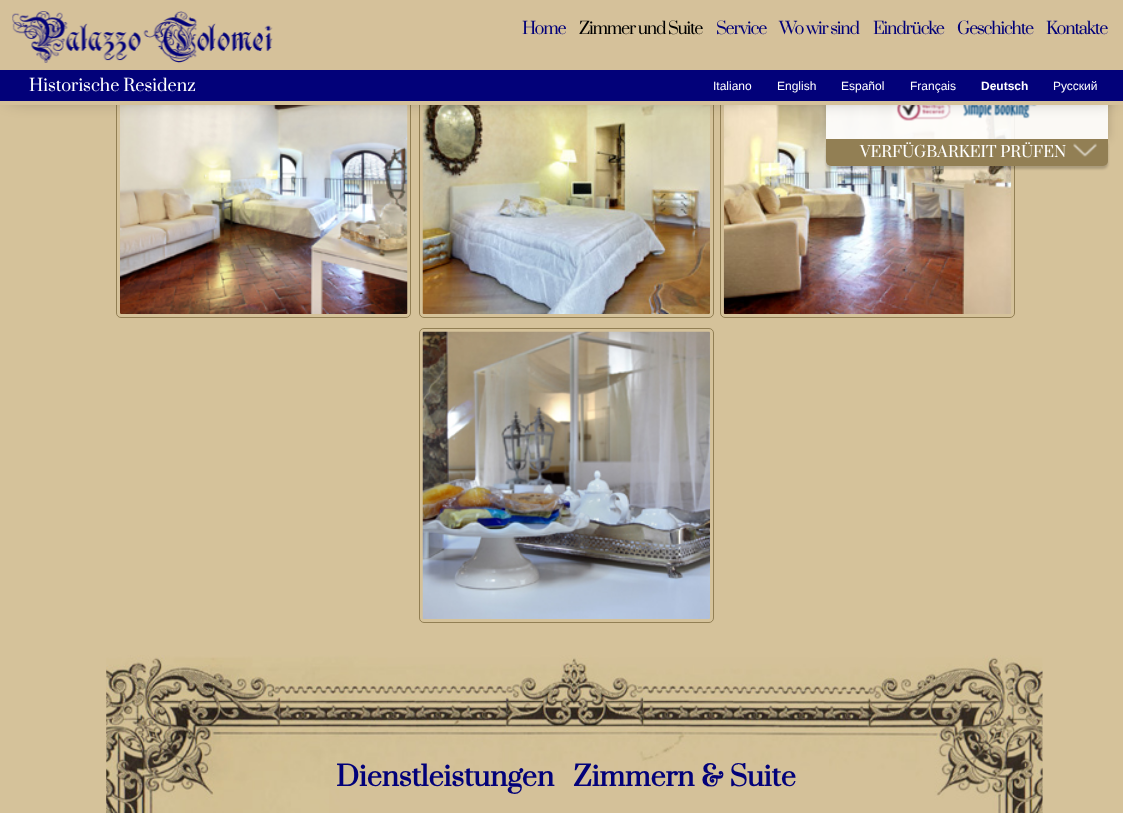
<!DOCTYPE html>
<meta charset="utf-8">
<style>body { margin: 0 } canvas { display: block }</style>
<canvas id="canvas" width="1123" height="813"></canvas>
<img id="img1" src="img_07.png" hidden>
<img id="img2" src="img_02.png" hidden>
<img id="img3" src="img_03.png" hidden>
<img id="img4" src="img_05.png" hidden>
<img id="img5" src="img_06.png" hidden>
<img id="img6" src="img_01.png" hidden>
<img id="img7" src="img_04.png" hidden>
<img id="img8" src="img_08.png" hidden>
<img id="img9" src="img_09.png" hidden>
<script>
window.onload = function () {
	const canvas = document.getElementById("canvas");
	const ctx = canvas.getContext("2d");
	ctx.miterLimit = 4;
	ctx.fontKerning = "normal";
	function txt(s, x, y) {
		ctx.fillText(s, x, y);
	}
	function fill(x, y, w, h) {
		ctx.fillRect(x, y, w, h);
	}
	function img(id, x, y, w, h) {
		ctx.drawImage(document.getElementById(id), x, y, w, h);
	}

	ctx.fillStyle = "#D5C29A";
	fill(0, 0, 1123, 813);
	ctx.beginPath();
	ctx.roundRect(720.5, 23.5, 294, 294, 4.5);
	ctx.strokeStyle = "#927F54";
	ctx.stroke();
	img("img1", 723, 105, 289, 209);
	ctx.save();
	ctx.beginPath();
	ctx.moveTo(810, 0);
	ctx.lineTo(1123, 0);
	ctx.lineTo(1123, 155);
	ctx.lineTo(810, 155);
	ctx.closePath();
	ctx.moveTo(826, -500);
	ctx.lineTo(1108, -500);
	ctx.lineTo(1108, 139);
	ctx.lineTo(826, 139);
	ctx.closePath();
	ctx.clip("evenodd");
	ctx.fillStyle = "rgba(0, 0, 0, 0.2)";
	ctx.filter = "blur(5px)";
	ctx.beginPath();
	ctx.rect(826, -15, 282, 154);
	ctx.fill();
	ctx.filter = "none";
	ctx.restore();
	ctx.fillStyle = "rgba(255, 255, 255, 0.9)";
	fill(826, 105, 282, 34);
	img("img2", 896, 105, 55, 16);
	img("img3", 963, 105, 74, 14);
	ctx.beginPath();
	ctx.roundRect(116.5, 23.5, 294, 294, 4.5);
	ctx.stroke();
	img("img4", 120, 105, 288, 209);
	ctx.beginPath();
	ctx.roundRect(419.5, 23.5, 294, 294, 4.5);
	ctx.stroke();
	img("img5", 422, 105, 288, 209);
	ctx.fillStyle = "rgba(0, 0, 0, 0.6)";
	ctx.filter = "blur(10px)";
	ctx.beginPath();
	ctx.rect(10, 10, 1104, 85);
	ctx.fill();
	ctx.filter = "none";
	ctx.fillStyle = "#D5C19A";
	fill(0, 0, 1123, 105);
	ctx.fillStyle = "#020179";
	fill(0, 70, 1123, 31);
	img("img6", 12, 11, 261, 52);
	ctx.fillStyle = "rgba(0, 0, 0, 0.2)";
	ctx.filter = "blur(1px)";
	ctx.beginPath();
	ctx.roundRect(826, 141, 282, 28, 5);
	ctx.fill();
	ctx.filter = "none";
	ctx.fillStyle = "#927F54";
	ctx.beginPath();
	ctx.roundRect(826, 139, 282, 27, [0, 0, 5, 5]);
	ctx.fill();
	img("img7", 1073, 143, 24, 14);
	ctx.beginPath();
	ctx.roundRect(419.5, 328.5, 294, 294, 4.5);
	ctx.stroke();
	img("img8", 422, 331, 288, 288);
	img("img9", 106, 655, 937, 158);
	ctx.font = "16.5px Prata";
	ctx.fillStyle = "#FFFFFF";
	txt("Historische Residenz", 29, 91);
	ctx.letterSpacing = "-1.25px";
	ctx.fillStyle = "#020179";
	txt("Home", 522, 34);
	ctx.fillStyle = "#000000";
	txt("Zimmer und Suite", 579, 34);
	ctx.fillStyle = "#020179";
	txt("Service", 716, 34);
	txt("Wo wir sind", 779, 34);
	txt("Eindrücke", 873, 34);
	txt("Geschichte", 957, 34);
	txt("Kontakte", 1046, 34);
	ctx.letterSpacing = "0px";
	ctx.font = "12px Liberation Sans";
	ctx.fillStyle = "#FFFFFF";
	txt("Italiano", 713, 90);
	txt("English", 777, 90);
	txt("Español", 841, 90);
	txt("Français", 910, 90);
	ctx.font = "bold 12px Liberation Sans";
	txt("Deutsch", 981, 90);
	ctx.font = "12px Liberation Sans";
	txt("Русский", 1053, 90);
	ctx.font = "15px Prata";
	txt("VERFÜGBARKEIT PRÜFEN", 860, 157);
	ctx.font = "bold 27px Prata";
	ctx.fillStyle = "#020179";
	txt("Dienstleistungen   Zimmern & Suite", 336, 786);
};
</script>
